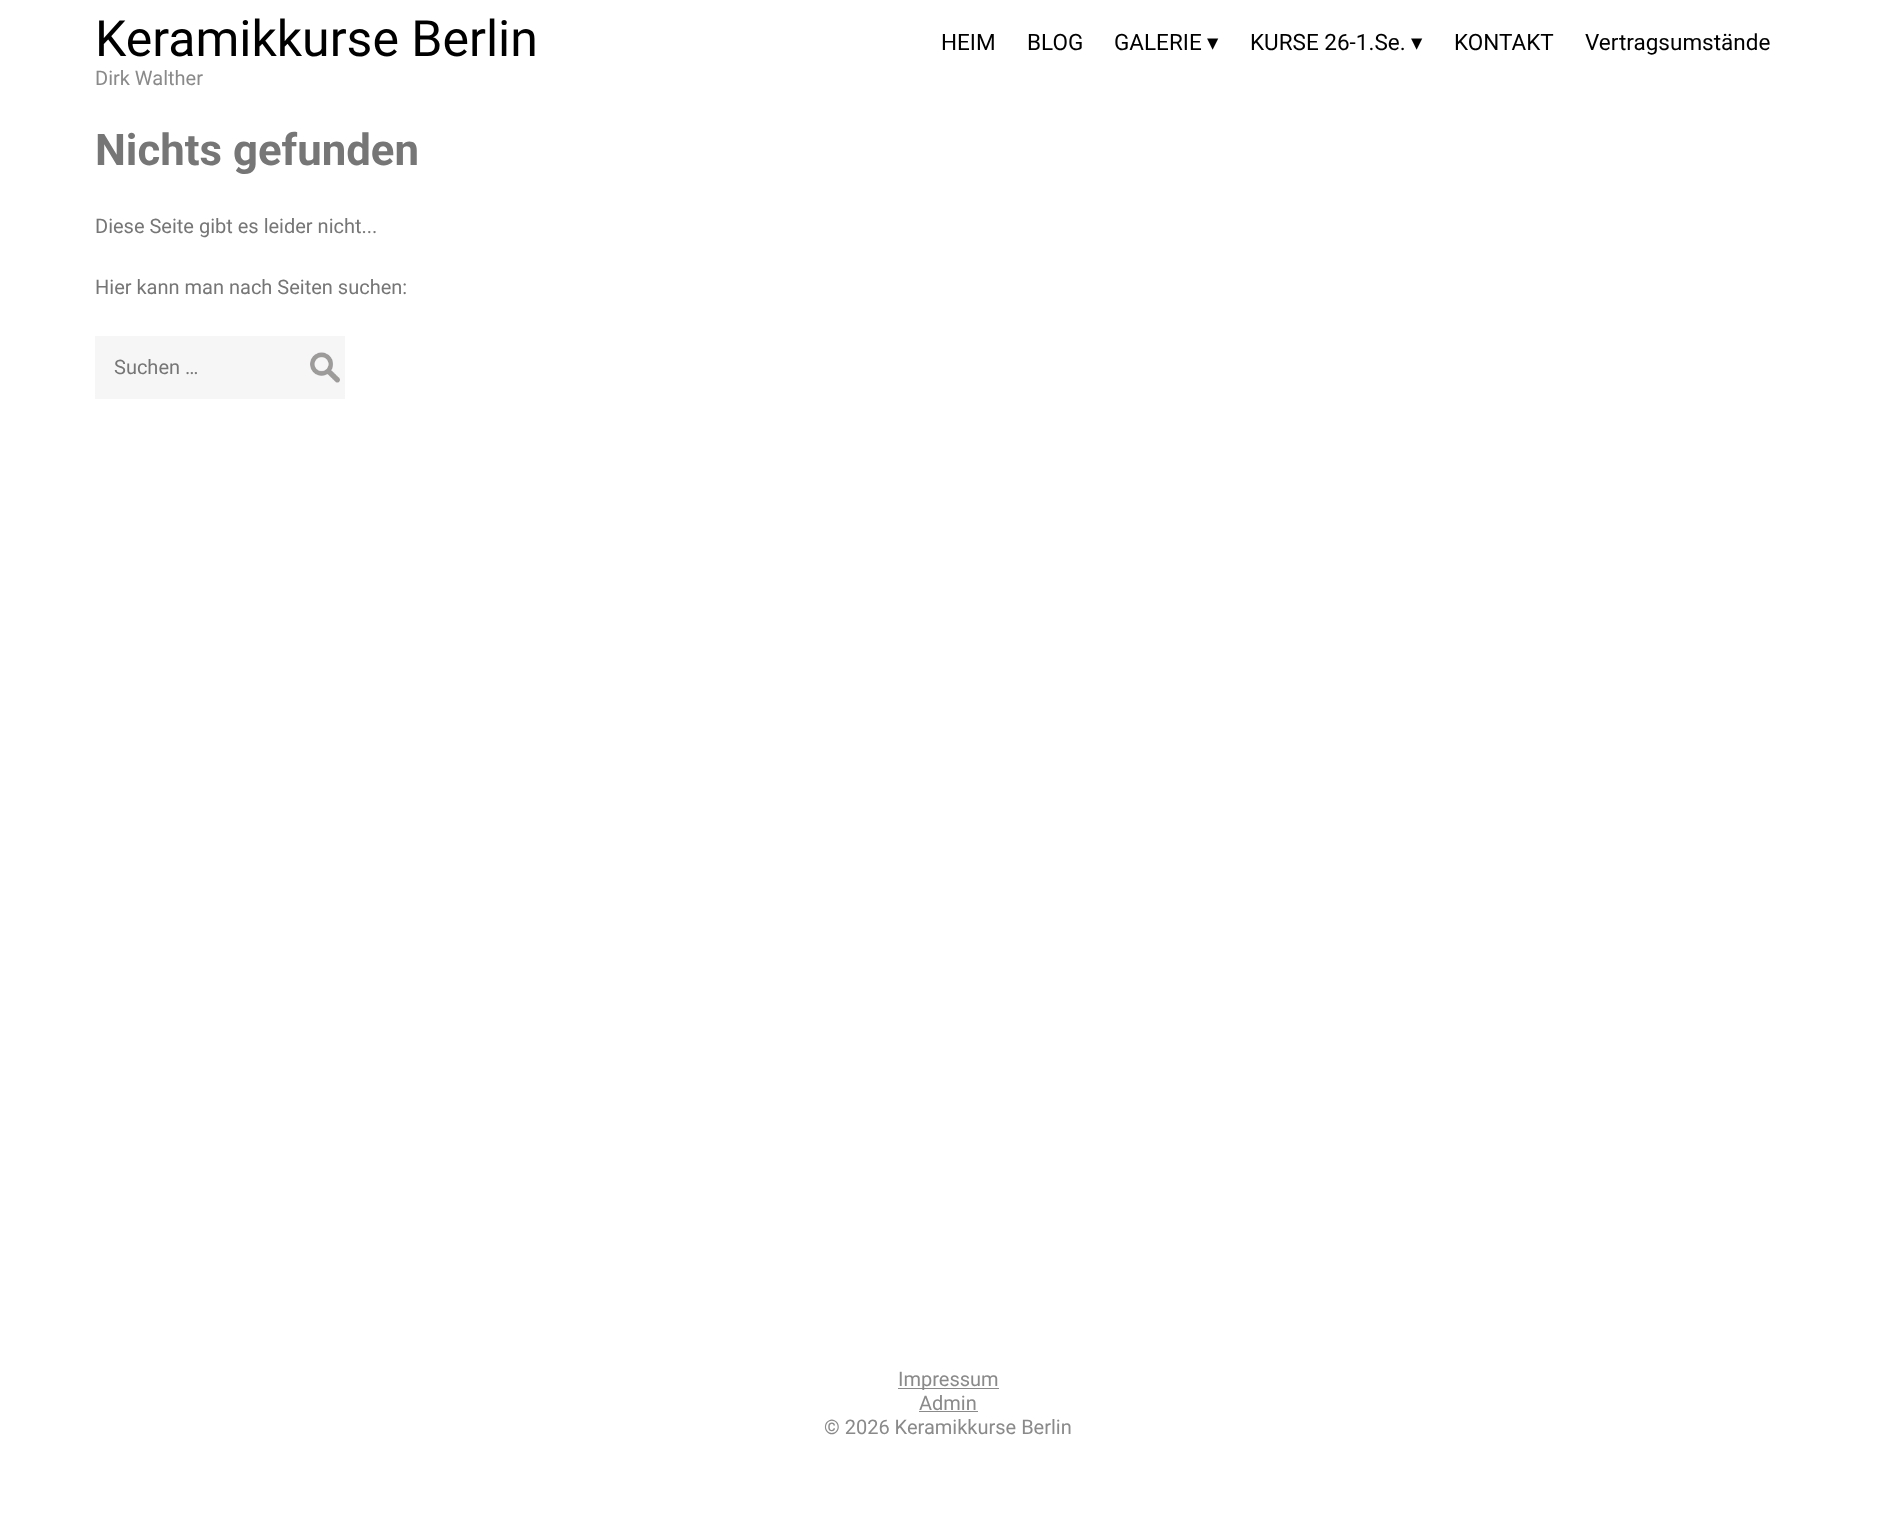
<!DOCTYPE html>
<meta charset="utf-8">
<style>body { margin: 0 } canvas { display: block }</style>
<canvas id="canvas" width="1896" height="1533"></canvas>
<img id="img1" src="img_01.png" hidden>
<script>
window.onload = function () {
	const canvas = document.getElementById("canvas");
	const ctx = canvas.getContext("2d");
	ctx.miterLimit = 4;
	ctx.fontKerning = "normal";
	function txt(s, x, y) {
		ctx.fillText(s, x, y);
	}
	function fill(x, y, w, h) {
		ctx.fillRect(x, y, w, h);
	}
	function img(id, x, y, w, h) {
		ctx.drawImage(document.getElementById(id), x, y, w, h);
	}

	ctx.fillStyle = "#FFFFFF";
	fill(0, 0, 1896, 1533);
	ctx.fillStyle = "#F6F6F6";
	fill(95, 336, 250, 63);
	img("img1", 310, 352, 30, 31);
	ctx.fillStyle = "#8A8A8A";
	fill(898, 1388, 101, 1);
	fill(919, 1411, 59, 1);
	ctx.font = "50px Roboto";
	ctx.fillStyle = "#000000";
	txt("Keramikkurse Berlin", 95, 56);
	ctx.font = "20px Roboto";
	ctx.fillStyle = "#8A8A8A";
	txt("Dirk Walther", 95, 85);
	ctx.font = "22.5px Roboto";
	ctx.fillStyle = "#000000";
	txt("HEIM", 941, 50);
	txt("BLOG", 1027, 50);
	txt("GALERIE", 1114, 50);
	ctx.font = "22.5px DejaVu Sans";
	txt("▾", 1207, 50);
	ctx.font = "22.5px Roboto";
	txt("KURSE 26-1.Se.", 1250, 50);
	ctx.font = "22.5px DejaVu Sans";
	txt("▾", 1411, 50);
	ctx.font = "22.5px Roboto";
	txt("KONTAKT", 1454, 50);
	txt("Vertragsumstände", 1585, 50);
	ctx.font = "bold 43.75px Roboto";
	ctx.fillStyle = "#767676";
	txt("Nichts gefunden", 95, 165);
	ctx.font = "20px Roboto";
	txt("Diese Seite gibt es leider nicht...", 95, 233);
	txt("Hier kann man nach Seiten suchen:", 95, 294);
	txt("Suchen …", 114, 374);
	ctx.fillStyle = "#8A8A8A";
	txt("Impressum", 898, 1386);
	txt("Admin", 919, 1410);
	txt("© 2026 Keramikkurse Berlin", 824, 1434);
};
</script>
